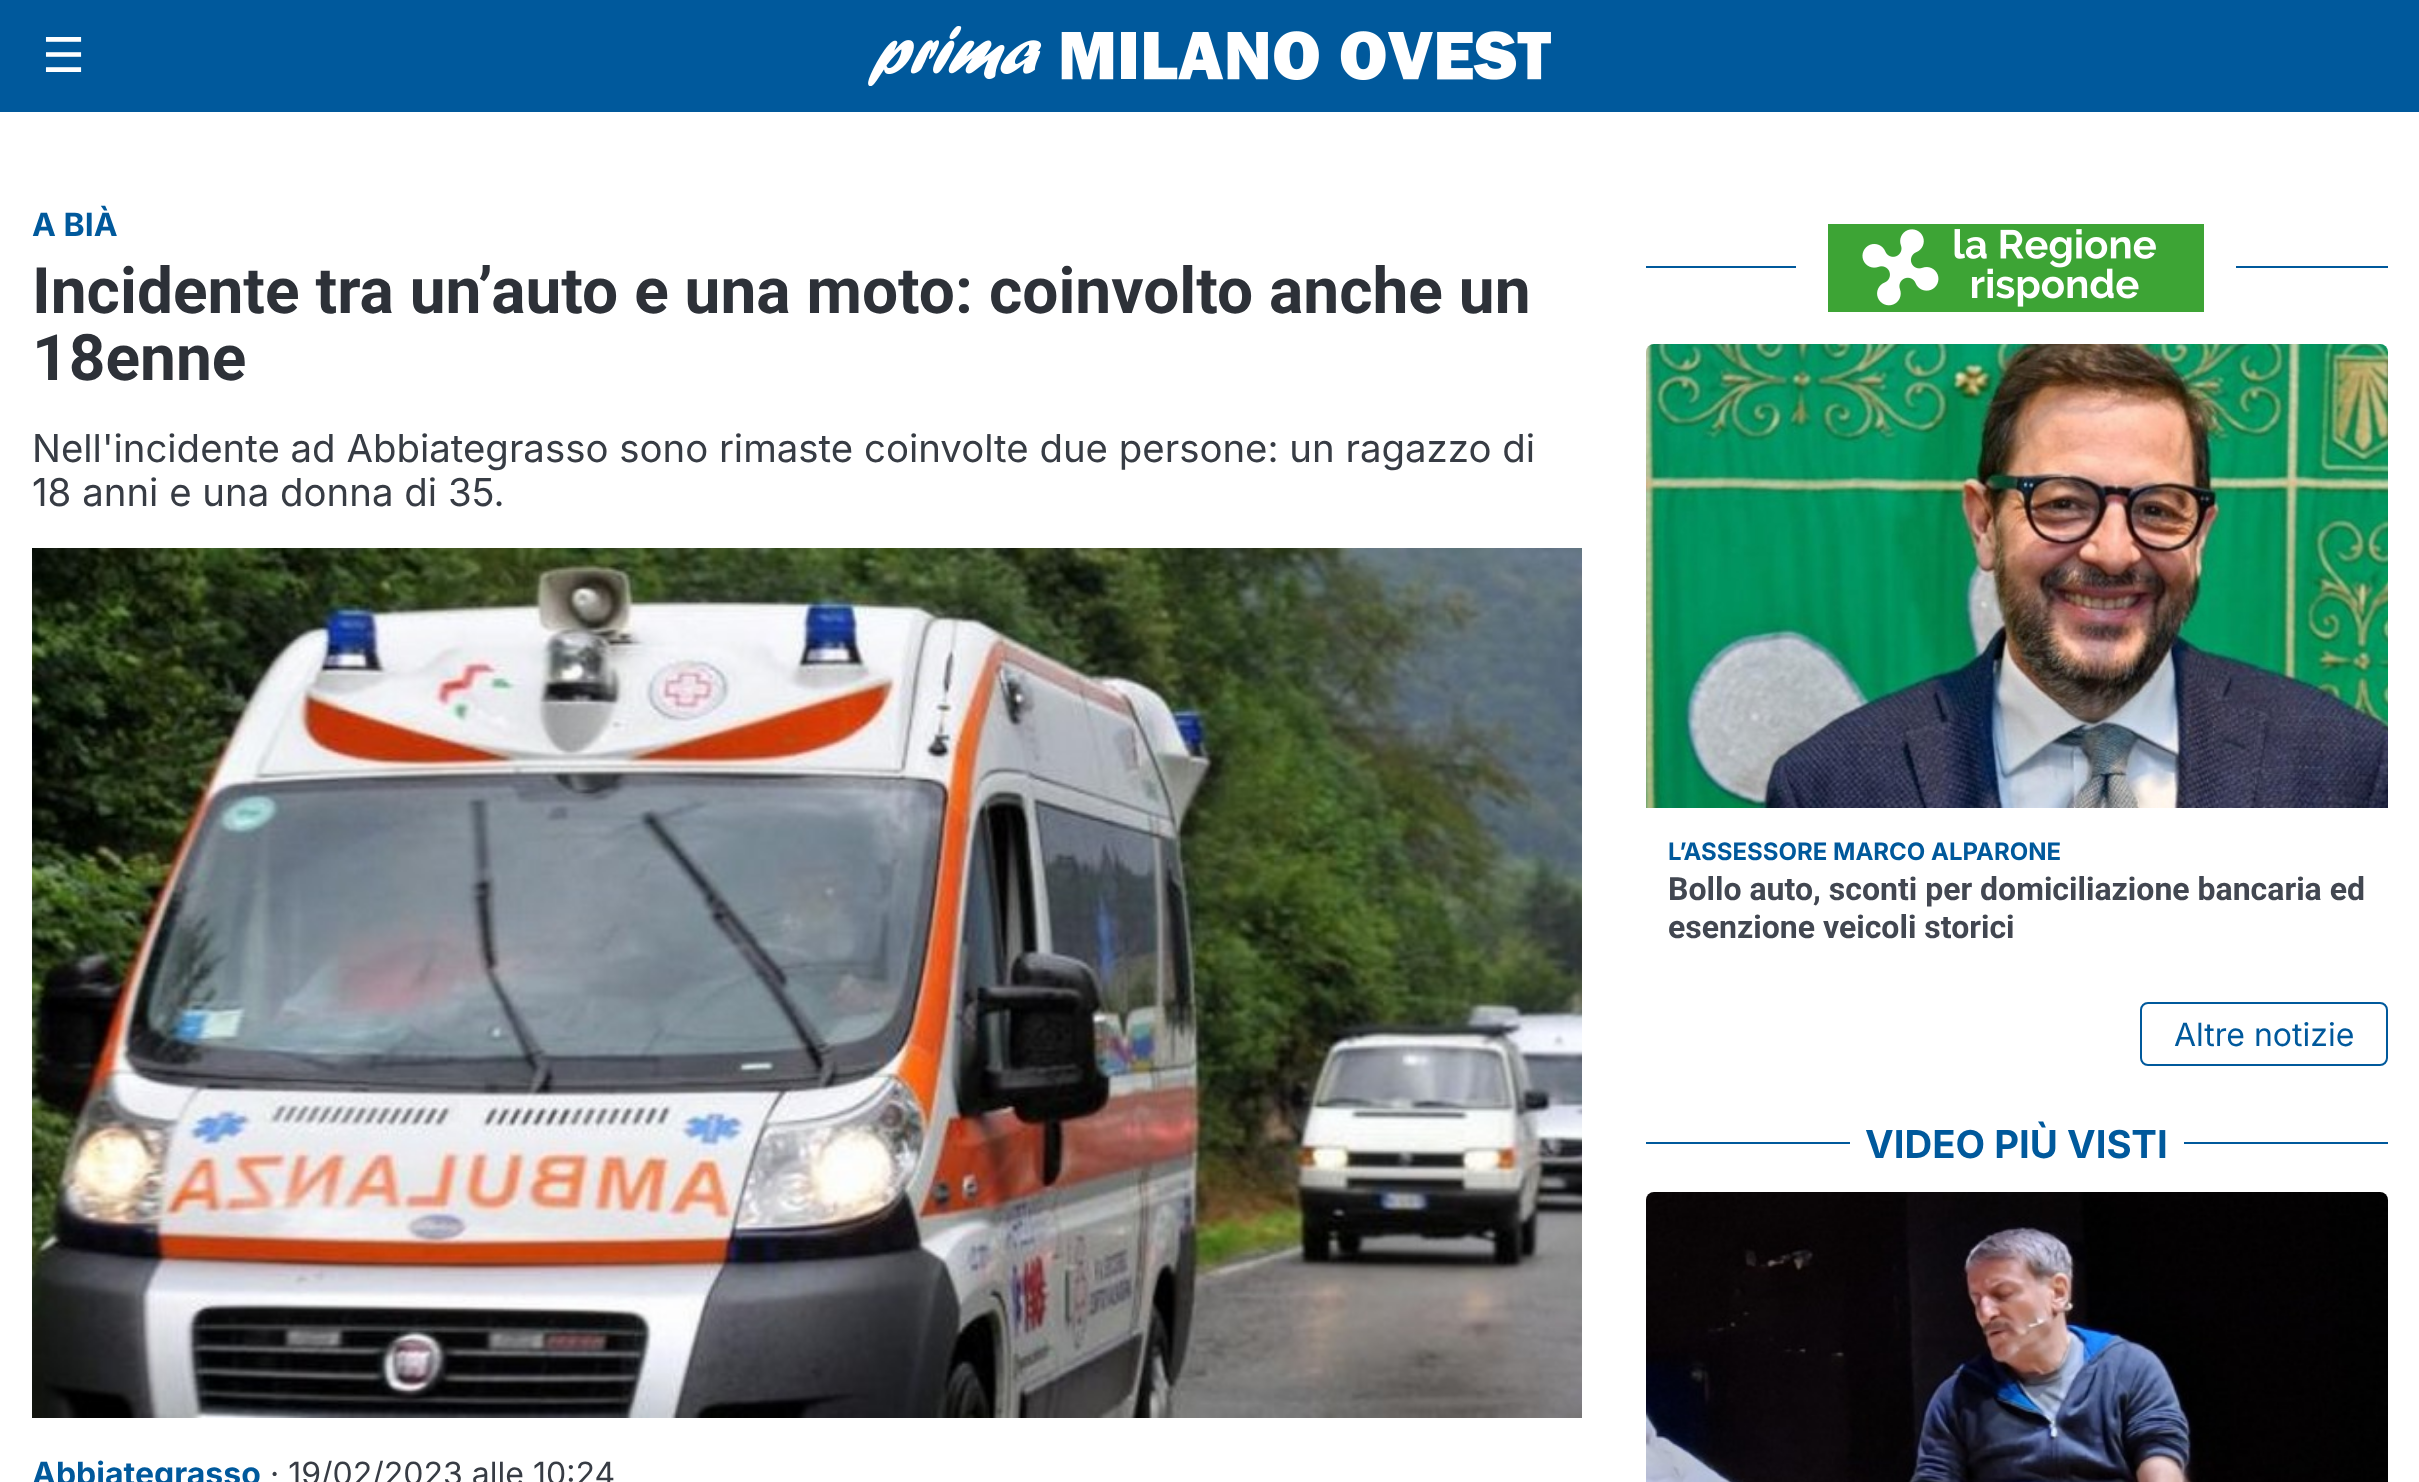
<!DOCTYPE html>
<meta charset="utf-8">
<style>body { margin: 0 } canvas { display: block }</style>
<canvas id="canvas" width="2419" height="1482"></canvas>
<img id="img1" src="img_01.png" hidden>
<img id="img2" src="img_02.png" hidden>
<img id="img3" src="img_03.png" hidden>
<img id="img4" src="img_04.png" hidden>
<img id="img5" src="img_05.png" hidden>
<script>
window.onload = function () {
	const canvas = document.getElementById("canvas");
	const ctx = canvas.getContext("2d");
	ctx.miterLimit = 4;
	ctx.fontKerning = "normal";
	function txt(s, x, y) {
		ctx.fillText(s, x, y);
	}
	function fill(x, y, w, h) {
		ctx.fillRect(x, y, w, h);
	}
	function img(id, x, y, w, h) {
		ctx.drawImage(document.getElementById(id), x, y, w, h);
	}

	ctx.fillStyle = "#FFFFFF";
	fill(0, 0, 2419, 1482);
	ctx.fillStyle = "#00599C";
	fill(0, 0, 2419, 112);
	img("img1", 868, 26, 683, 60);
	img("img2", 32, 548, 1550, 870);
	fill(1646, 266, 742, 2);
	ctx.fillStyle = "#FFFFFF";
	fill(1796, 266, 440, 2);
	img("img3", 1828, 224, 376, 88);
	img("img4", 1646, 344, 742, 464);
	ctx.beginPath();
	ctx.roundRect(2141, 1003, 246, 62, 7);
	ctx.strokeStyle = "#00599C";
	ctx.lineWidth = 2;
	ctx.stroke();
	ctx.fillStyle = "#00599C";
	fill(1646, 1142, 742, 2);
	ctx.fillStyle = "#FFFFFF";
	fill(1850, 1142, 334, 2);
	img("img5", 1646, 1192, 742, 290);
	ctx.font = "48px DejaVu Sans";
	txt("☰", 42, 72);
	ctx.font = "bold 32px Inter";
	ctx.fillStyle = "#00599C";
	txt("A BIÀ", 32, 236);
	ctx.font = "bold 64px Roboto";
	ctx.fillStyle = "#2D3138";
	txt("Incidente tra un’auto e una moto: coinvolto anche un", 32, 313);
	txt("18enne", 32, 380);
	ctx.font = "38.4px Inter";
	ctx.fillStyle = "#373C44";
	txt("Nell'incidente ad Abbiategrasso sono rimaste coinvolte due persone: un ragazzo di", 32, 462);
	txt("18 anni e una donna di 35.", 32, 506);
	ctx.font = "bold 32px Inter";
	ctx.fillStyle = "#00599C";
	txt("Abbiategrasso", 32, 1485);
	ctx.font = "32px Inter";
	ctx.fillStyle = "#373C44";
	txt("· 19/02/2023 alle 10:24", 270, 1485);
	ctx.font = "bold 24px Inter";
	ctx.fillStyle = "#00599C";
	txt("L’ASSESSORE MARCO ALPARONE", 1668, 860);
	ctx.font = "bold 32px Roboto";
	ctx.fillStyle = "#424751";
	txt("Bollo auto, sconti per domiciliazione bancaria ed", 1668, 900);
	txt("esenzione veicoli storici", 1668, 938);
	ctx.font = "32px Inter";
	ctx.fillStyle = "#00599C";
	txt("Altre notizie", 2174, 1046);
	ctx.font = "bold 38.4px Inter";
	txt("VIDEO PIÙ VISTI", 1865, 1158);
};
</script>
